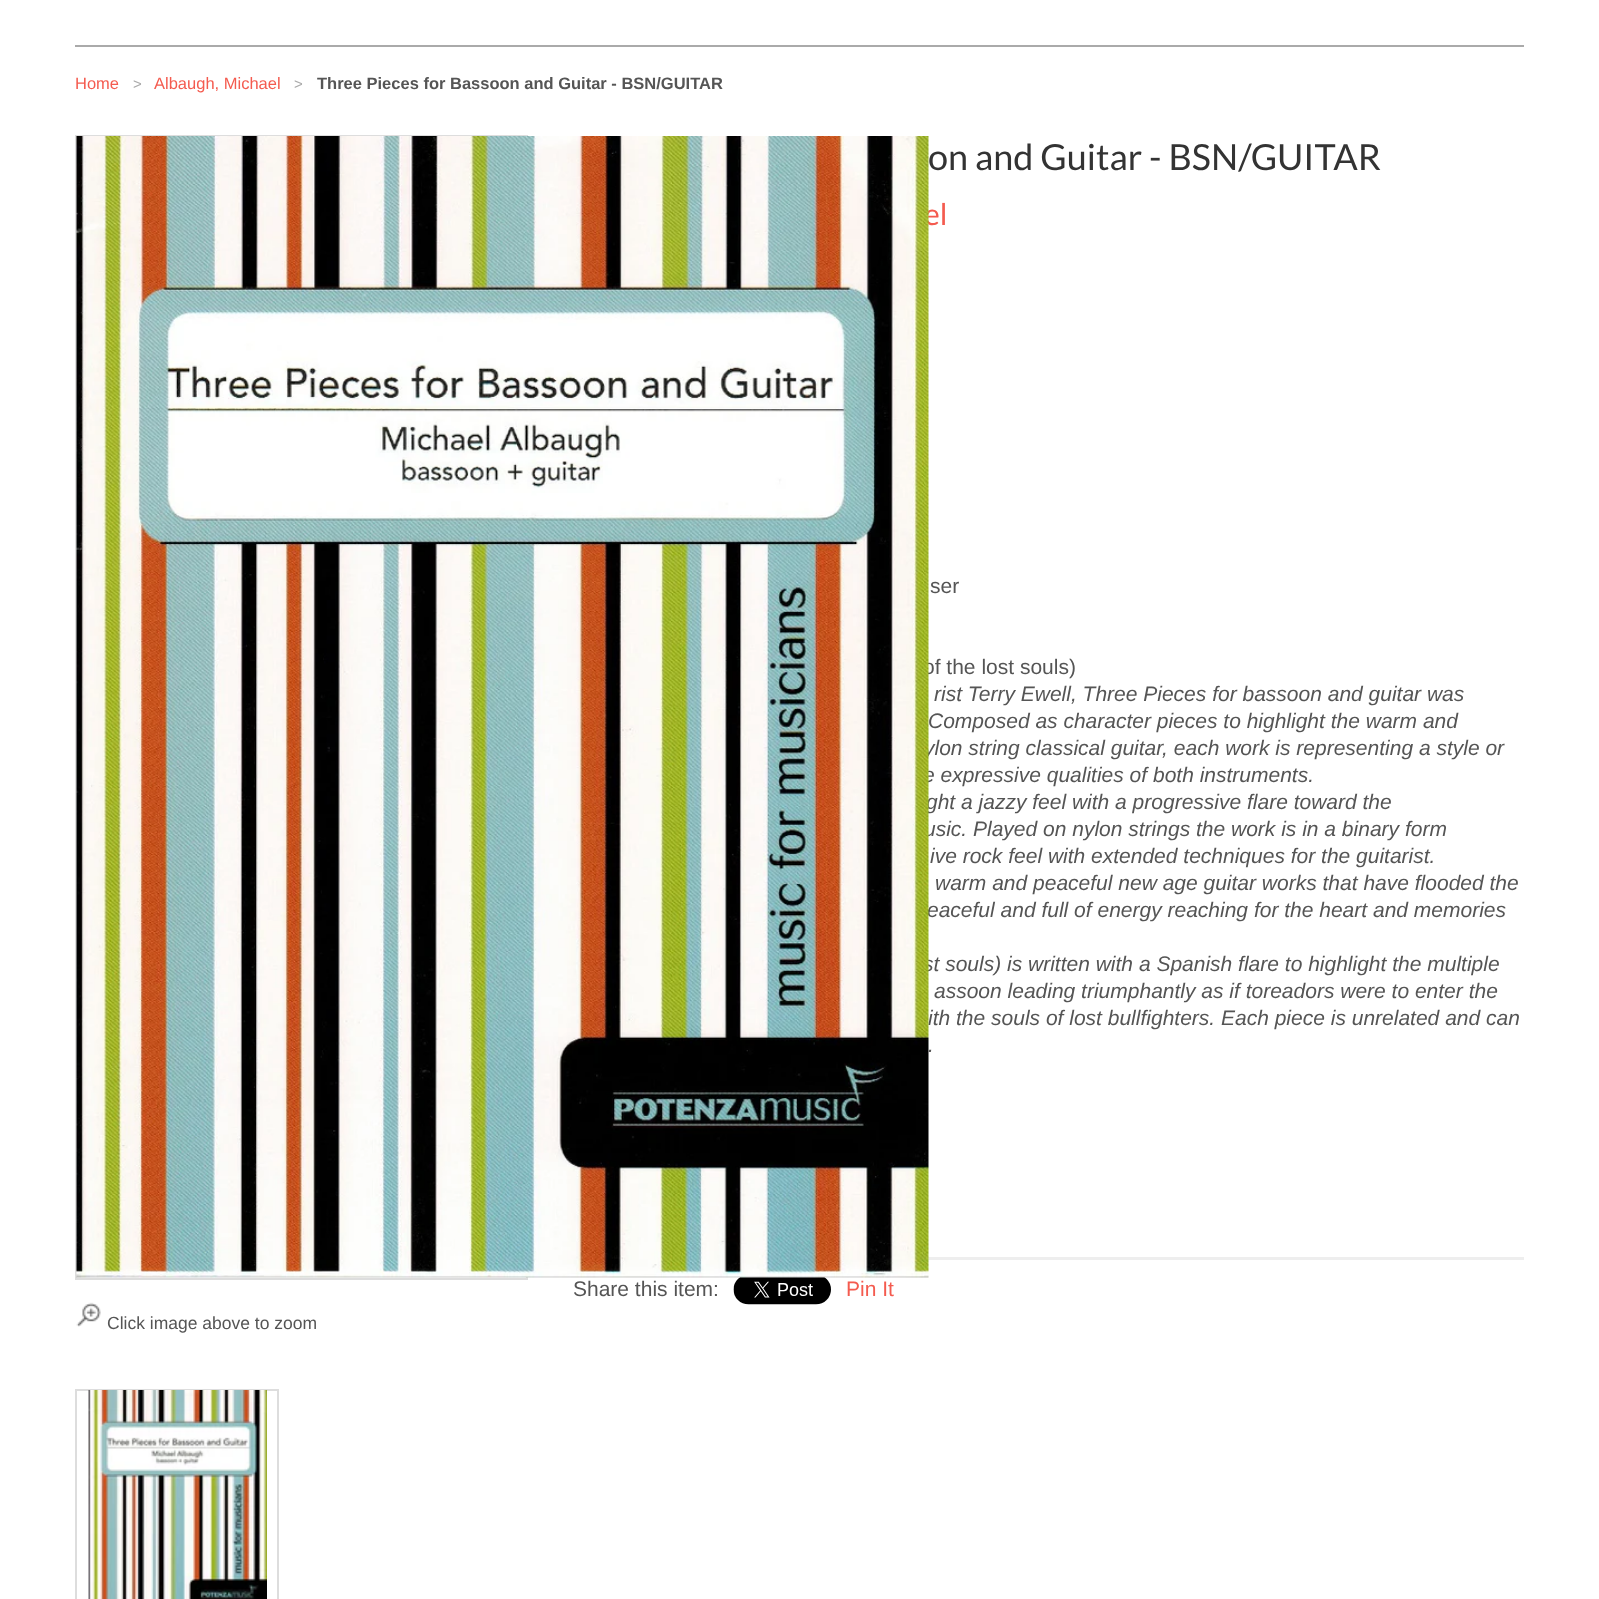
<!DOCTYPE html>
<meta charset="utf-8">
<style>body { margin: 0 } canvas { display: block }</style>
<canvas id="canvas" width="1599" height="1599"></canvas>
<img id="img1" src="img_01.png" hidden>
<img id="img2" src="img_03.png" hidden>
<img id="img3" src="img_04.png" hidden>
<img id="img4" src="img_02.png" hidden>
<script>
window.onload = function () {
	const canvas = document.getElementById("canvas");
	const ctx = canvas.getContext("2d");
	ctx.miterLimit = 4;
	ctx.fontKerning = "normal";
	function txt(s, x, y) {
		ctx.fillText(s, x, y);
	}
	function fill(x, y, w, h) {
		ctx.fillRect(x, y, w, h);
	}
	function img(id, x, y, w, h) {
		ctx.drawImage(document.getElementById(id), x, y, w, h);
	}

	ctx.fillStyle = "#FFFFFF";
	fill(0, 0, 1599, 1599);
	ctx.fillStyle = "#AAAAAA";
	fill(75, 45, 1449, 2);
	ctx.fillStyle = "#EEEEEE";
	fill(928, 1257, 596, 3);
	img("img1", 733, 1277, 98, 28);
	ctx.strokeStyle = "#DDDDDD";
	ctx.lineWidth = 2;
	ctx.strokeRect(76, 136, 451, 1143);
	img("img2", 76, 1302, 25, 25);
	ctx.strokeRect(76, 1390, 202, 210);
	img("img3", 88, 1390, 179, 209);
	ctx.font = "16.5px Liberation Sans";
	ctx.fillStyle = "#F45B4F";
	txt("Home", 75, 89);
	ctx.font = "15px Liberation Sans";
	ctx.fillStyle = "#AAAAAA";
	txt(">", 133, 89);
	ctx.font = "16.5px Liberation Sans";
	ctx.fillStyle = "#F45B4F";
	txt("Albaugh, Michael", 154, 89);
	ctx.font = "15px Liberation Sans";
	ctx.fillStyle = "#AAAAAA";
	txt(">", 294, 89);
	ctx.font = "bold 16.5px Liberation Sans";
	ctx.fillStyle = "#555555";
	txt("Three Pieces for Bassoon and Guitar - BSN/GUITAR", 317, 89);
	ctx.font = "36px Lato";
	ctx.fillStyle = "#333333";
	txt("on and Guitar - BSN/GUITAR", 928, 170);
	ctx.font = "30px Lato";
	ctx.fillStyle = "#F45B4F";
	txt("el", 924, 225);
	ctx.font = "21px Liberation Sans";
	ctx.fillStyle = "#555555";
	txt("ser", 930, 593);
	txt("of the lost souls)", 923, 674);
	ctx.font = "italic 21px Liberation Sans";
	txt("rist Terry Ewell, Three Pieces for bassoon and guitar was", 934, 701);
	txt("Composed as character pieces to highlight the warm and", 928, 728);
	txt("ylon string classical guitar, each work is representing a style or", 924, 755);
	txt("e expressive qualities of both instruments.", 923, 782);
	txt("ght a jazzy feel with a progressive flare toward the", 926, 809);
	txt("usic. Played on nylon strings the work is in a binary form", 924, 836);
	txt("ive rock feel with extended techniques for the guitarist.", 930, 863);
	txt("warm and peaceful new age guitar works that have flooded the", 935, 890);
	txt("eaceful and full of energy reaching for the heart and memories", 927, 917);
	txt("st souls) is written with a Spanish flare to highlight the multiple", 923, 971);
	txt("assoon leading triumphantly as if toreadors were to enter the", 934, 998);
	txt("ith the souls of lost bullfighters. Each piece is unrelated and can", 928, 1025);
	txt(".", 928, 1052);
	ctx.font = "21px Liberation Sans";
	txt("Share this item:", 573, 1296);
	ctx.fillStyle = "#F45B4F";
	txt("Pin It", 846, 1296);
	img("img4", 76, 136, 853, 1142);
	ctx.font = "17.5px Liberation Sans";
	ctx.fillStyle = "#555555";
	txt("Click image above to zoom", 107, 1329);
};
</script>
